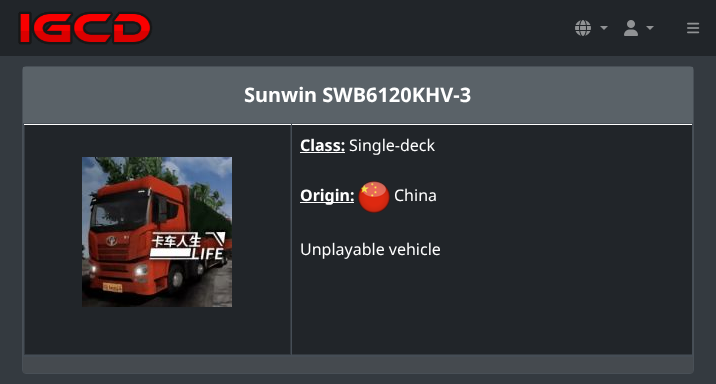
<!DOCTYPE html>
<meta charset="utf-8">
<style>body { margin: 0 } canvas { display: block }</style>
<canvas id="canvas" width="716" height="384"></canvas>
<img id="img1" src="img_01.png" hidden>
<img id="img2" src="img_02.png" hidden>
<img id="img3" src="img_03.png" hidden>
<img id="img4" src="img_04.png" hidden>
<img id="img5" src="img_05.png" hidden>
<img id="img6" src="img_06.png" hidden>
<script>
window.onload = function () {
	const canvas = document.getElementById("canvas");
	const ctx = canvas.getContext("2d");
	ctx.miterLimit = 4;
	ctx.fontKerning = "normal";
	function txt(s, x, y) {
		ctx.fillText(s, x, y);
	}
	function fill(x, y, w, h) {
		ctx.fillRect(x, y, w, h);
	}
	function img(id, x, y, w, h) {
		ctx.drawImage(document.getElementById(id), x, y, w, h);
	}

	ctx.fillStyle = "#343A40";
	fill(0, 0, 716, 384);
	ctx.fillStyle = "#212529";
	fill(0, 0, 716, 56);
	img("img1", 18, 11, 135, 34);
	img("img2", 575, 20, 16, 16);
	ctx.fillStyle = "#909294";
	ctx.beginPath();
	ctx.moveTo(600, 26);
	ctx.lineTo(608, 26);
	ctx.lineTo(604, 30);
	ctx.closePath();
	ctx.fill();
	img("img3", 624, 20, 14, 16);
	ctx.beginPath();
	ctx.moveTo(646, 26);
	ctx.lineTo(654, 26);
	ctx.lineTo(650, 30);
	ctx.closePath();
	ctx.fill();
	img("img4", 687, 22, 13, 12);
	ctx.beginPath();
	ctx.roundRect(22.5, 66.5, 671, 307, 3.5);
	ctx.strokeStyle = "#495057";
	ctx.stroke();
	ctx.fillStyle = "#5A6268";
	fill(23, 67, 670, 56);
	ctx.fillStyle = "#495057";
	fill(23, 123, 670, 1);
	ctx.fillStyle = "#454A4F";
	fill(23, 357, 670, 16);
	ctx.fillStyle = "#FFFFFF";
	fill(23, 124, 670, 1);
	ctx.fillStyle = "#212529";
	fill(25, 125, 265, 229);
	ctx.fillStyle = "#454D55";
	fill(23, 124, 1, 233);
	img("img5", 82, 157, 150, 150);
	ctx.fillStyle = "#212529";
	fill(292, 125, 400, 229);
	ctx.fillStyle = "#454D55";
	fill(692, 124, 1, 233);
	fill(291, 124, 1, 233);
	fill(23, 355, 670, 2);
	ctx.fillStyle = "#FFFFFF";
	fill(300, 152, 45, 1);
	fill(300, 202, 54, 1);
	img("img6", 358, 181, 32, 32);
	ctx.font = "bold 20px Noto Sans";
	txt("Sunwin SWB6120KHV-3", 244, 102);
	ctx.font = "bold 16px Noto Sans";
	txt("Class:", 300, 151);
	ctx.font = "16px Noto Sans";
	txt("Single-deck", 349, 151);
	ctx.font = "bold 16px Noto Sans";
	txt("Origin:", 300, 201);
	ctx.font = "16px Noto Sans";
	txt("China", 394, 201);
	txt("Unplayable vehicle", 300, 255);
};
</script>
